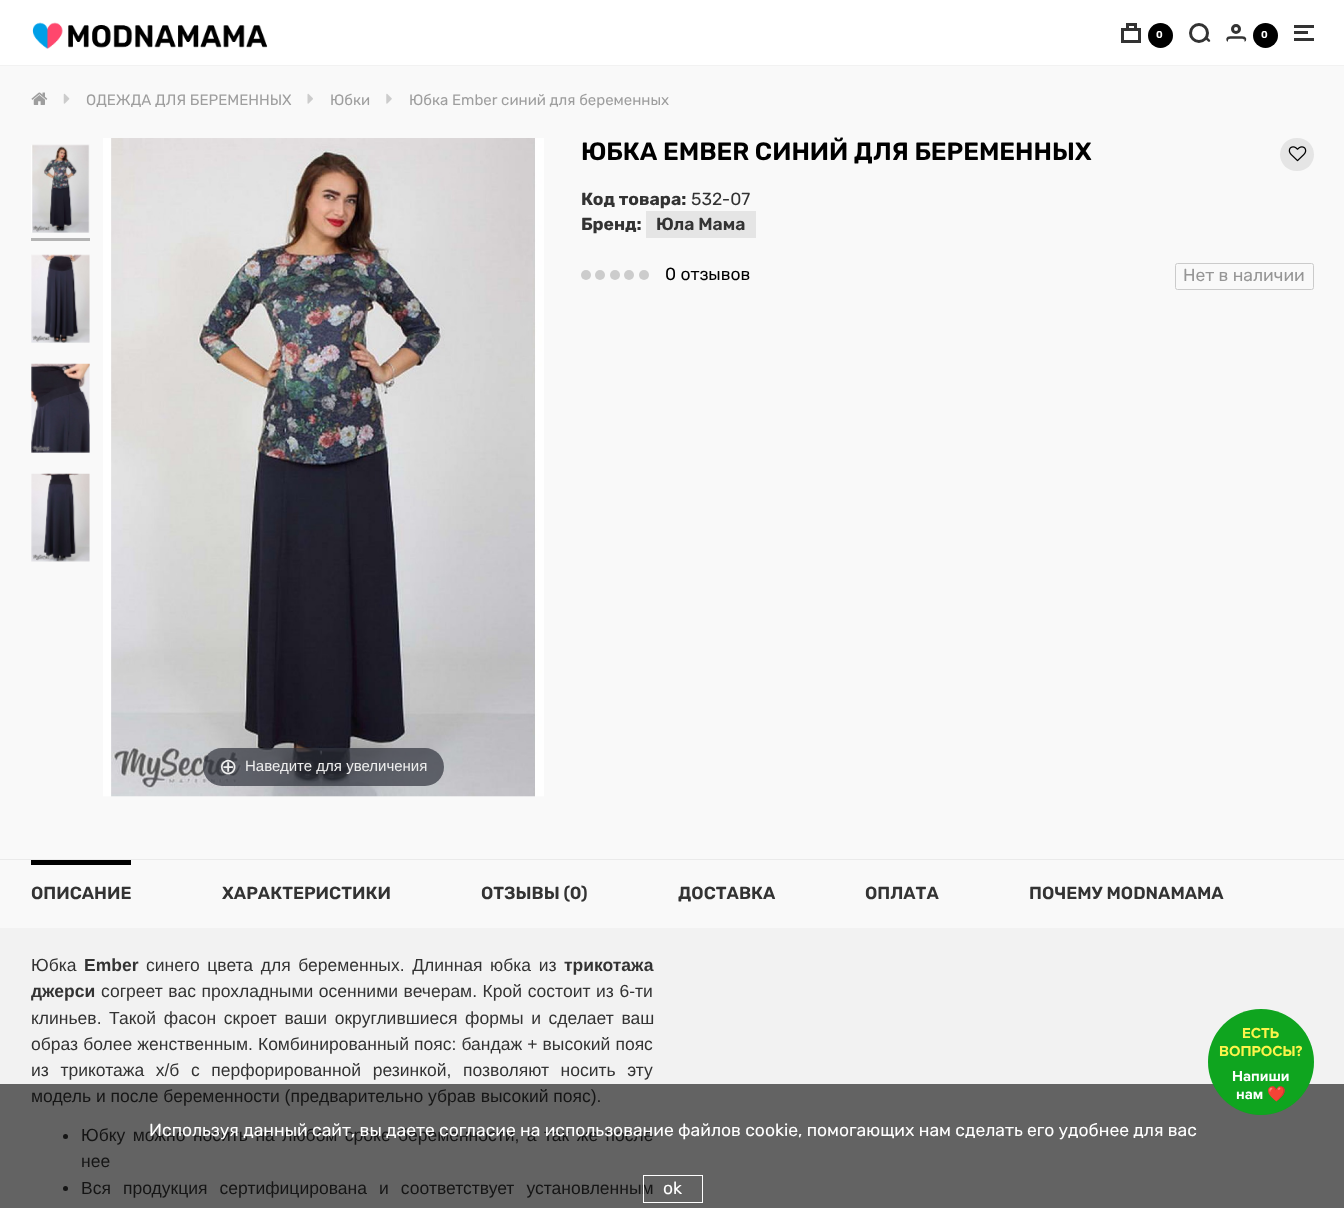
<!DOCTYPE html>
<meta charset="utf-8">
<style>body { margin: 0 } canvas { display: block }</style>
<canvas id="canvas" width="1344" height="1208"></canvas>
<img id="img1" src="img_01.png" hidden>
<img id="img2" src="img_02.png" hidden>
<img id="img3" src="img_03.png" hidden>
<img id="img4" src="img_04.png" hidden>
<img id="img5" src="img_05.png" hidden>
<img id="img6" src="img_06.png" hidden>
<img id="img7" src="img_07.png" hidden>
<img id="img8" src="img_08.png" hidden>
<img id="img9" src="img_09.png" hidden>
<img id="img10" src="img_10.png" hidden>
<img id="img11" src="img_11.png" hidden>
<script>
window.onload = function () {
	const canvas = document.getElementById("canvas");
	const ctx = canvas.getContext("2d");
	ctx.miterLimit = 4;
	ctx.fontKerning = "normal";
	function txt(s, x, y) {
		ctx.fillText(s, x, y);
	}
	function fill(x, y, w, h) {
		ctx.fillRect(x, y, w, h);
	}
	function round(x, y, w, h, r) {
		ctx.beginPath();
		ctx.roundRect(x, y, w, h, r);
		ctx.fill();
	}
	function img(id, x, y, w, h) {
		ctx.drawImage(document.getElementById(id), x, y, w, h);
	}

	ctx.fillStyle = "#F9F9F9";
	fill(0, 0, 1344, 1208);
	ctx.fillStyle = "#FFFFFF";
	fill(0, 0, 1344, 65);
	ctx.fillStyle = "#F2F2F2";
	fill(0, 65, 1344, 1);
	img("img1", 32, 22, 236, 27);
	ctx.fillStyle = "#333333";
	fill(1126, 23, 10, 3);
	fill(1134, 23, 3, 7);
	fill(1126, 23, 3, 7);
	ctx.strokeStyle = "#333333";
	ctx.lineWidth = 3;
	ctx.strokeRect(1122.5, 29.5, 17, 12);
	ctx.fillStyle = "#000000";
	ctx.beginPath();
	ctx.arc(1160.5, 35.5, 12.5, 0, Math.PI * 2);
	ctx.fill();
	ctx.beginPath();
	ctx.arc(1199, 33, 8.5, 0, Math.PI * 2);
	ctx.stroke();
	ctx.fillStyle = "#333333";
	ctx.beginPath();
	ctx.moveTo(1210, 41.5);
	ctx.bezierCurveTo(1208.5, 42.5, 1207.5, 41, 1207, 40.5);
	ctx.bezierCurveTo(1206, 39.5, 1204.5, 38.5, 1205.5, 37);
	ctx.bezierCurveTo(1206.5, 36, 1208, 38, 1208.5, 38.5);
	ctx.bezierCurveTo(1209, 39, 1211, 40.5, 1210, 41.5);
	ctx.closePath();
	ctx.fill();
	ctx.beginPath();
	ctx.arc(1236, 29, 3.5, 0, Math.PI * 2);
	ctx.stroke();
	ctx.beginPath();
	ctx.moveTo(1228, 40.5);
	ctx.bezierCurveTo(1227.5, 40.5, 1227.5, 39.5, 1227.5, 39);
	ctx.bezierCurveTo(1228, 37, 1230.5, 37.5, 1231.5, 37.5);
	ctx.lineTo(1241, 37.5);
	ctx.bezierCurveTo(1242, 37.5, 1244.5, 37, 1245, 39);
	ctx.bezierCurveTo(1245, 39.5, 1245, 40.5, 1244.5, 40.5);
	ctx.lineWidth = 2.5;
	ctx.stroke();
	ctx.fillStyle = "#000000";
	ctx.beginPath();
	ctx.arc(1265.5, 35.5, 12.5, 0, Math.PI * 2);
	ctx.fill();
	ctx.fillStyle = "#333333";
	fill(1294, 25, 20, 3);
	fill(1294, 31, 14, 3);
	fill(1294, 38, 20, 3);
	img("img2", 31, 92, 17, 13);
	img("img3", 63, 93, 7, 11);
	img("img4", 307, 93, 6, 11);
	img("img5", 386, 93, 6, 11);
	ctx.fillStyle = "#E5E5E5";
	round(1280, 138, 34, 33, 16.5);
	img("img6", 1288, 146, 19, 16);
	fill(646, 211, 110, 27);
	ctx.fillStyle = "#CCCCCC";
	ctx.beginPath();
	ctx.arc(586, 275, 5, 0, Math.PI * 2);
	ctx.fill();
	ctx.beginPath();
	ctx.arc(600, 275, 5, 0, Math.PI * 2);
	ctx.fill();
	ctx.beginPath();
	ctx.arc(615, 275, 5, 0, Math.PI * 2);
	ctx.fill();
	ctx.beginPath();
	ctx.arc(629, 275, 5, 0, Math.PI * 2);
	ctx.fill();
	ctx.beginPath();
	ctx.arc(644, 275, 5, 0, Math.PI * 2);
	ctx.fill();
	ctx.beginPath();
	ctx.roundRect(1175.5, 263.5, 138, 26, 2);
	ctx.strokeStyle = "#CBCBCB";
	ctx.lineWidth = 1;
	ctx.stroke();
	ctx.fillStyle = "#B4B4B4";
	fill(31, 238, 59, 3);
	img("img7", 31, 144, 59, 89);
	img("img8", 31, 254, 59, 89);
	img("img9", 31, 363, 59, 90);
	img("img10", 31, 473, 59, 89);
	img("img11", 103, 138, 441, 659);
	ctx.fillStyle = "rgba(49, 51, 61, 0.7)";
	round(203, 748, 241, 38, 19);
	ctx.fillStyle = "#EAEAEA";
	fill(0, 859, 1344, 1);
	ctx.fillStyle = "#000000";
	fill(31, 860, 100, 5);
	ctx.fillStyle = "#F2F2F2";
	fill(0, 928, 1344, 156);
	ctx.fillStyle = "#636363";
	fill(0, 1084, 1344, 124);
	ctx.fillStyle = "#151515";
	ctx.beginPath();
	ctx.arc(65.5, 1136.5, 2.5, 0, Math.PI * 2);
	ctx.fill();
	ctx.beginPath();
	ctx.arc(65.5, 1188.5, 2.5, 0, Math.PI * 2);
	ctx.fill();
	ctx.fillStyle = "#08A018";
	ctx.beginPath();
	ctx.arc(1261, 1062, 53, 0, Math.PI * 2);
	ctx.fill();
	ctx.fillStyle = "rgba(68, 207, 82, 0.12)";
	ctx.beginPath();
	ctx.arc(1261, 1062, 53, 0, Math.PI * 2);
	ctx.fill();
	ctx.font = "600 10px Rubik";
	ctx.fillStyle = "#FFFFFF";
	txt("0", 1156, 38);
	txt("0", 1261, 38);
	ctx.font = "15px Rubik";
	ctx.fillStyle = "#9E9E9E";
	txt("ОДЕЖДА ДЛЯ БЕРЕМЕННЫХ", 86, 105);
	txt("Юбки", 330, 105);
	txt("Юбка Ember синий для беременных", 409, 105);
	ctx.font = "600 25px Rubik";
	ctx.fillStyle = "#000000";
	txt("ЮБКА EMBER СИНИЙ ДЛЯ БЕРЕМЕННЫХ", 581, 160);
	ctx.font = "bold 17.5px Rubik";
	ctx.fillStyle = "#333333";
	txt("Код товара:", 581, 205);
	ctx.font = "17.5px Rubik";
	txt("532-07", 691, 205);
	ctx.font = "bold 17.5px Rubik";
	txt("Бренд:", 581, 230);
	ctx.font = "600 17.5px Rubik";
	txt("Юла Мама", 656, 230);
	ctx.font = "17.5px Rubik";
	ctx.fillStyle = "#000000";
	txt("0 отзывов", 665, 280);
	ctx.fillStyle = "#969696";
	txt("Нет в наличии", 1183, 281);
	ctx.font = "22px DejaVu Sans";
	ctx.fillStyle = "#EEEEEE";
	txt("⊕", 219, 774);
	ctx.font = "15px Liberation Sans";
	txt("Наведите для увеличения", 245, 771);
	ctx.font = "600 17.5px Rubik";
	ctx.fillStyle = "#333333";
	txt("ОПИСАНИЕ", 31, 899);
	txt("ХАРАКТЕРИСТИКИ", 222, 899);
	txt("ОТЗЫВЫ (0)", 481, 899);
	txt("ДОСТАВКА", 678, 899);
	txt("ОПЛАТА", 865, 899);
	txt("ПОЧЕМУ MODNAMAMA", 1029, 899);
	ctx.font = "17.5px Liberation Sans";
	txt("Юбка", 31, 971);
	ctx.font = "bold 17.5px Liberation Sans";
	txt("Ember", 84, 971);
	ctx.wordSpacing = "2.75px";
	ctx.font = "17.5px Liberation Sans";
	txt("синего цвета для беременных. Длинная юбка из", 146, 971);
	ctx.wordSpacing = "0px";
	ctx.font = "bold 17.5px Liberation Sans";
	txt("трикотажа", 564, 971);
	txt("джерси", 31, 997);
	ctx.wordSpacing = "0.75px";
	ctx.font = "17.5px Liberation Sans";
	txt("согреет вас прохладными осенними вечерам. Крой состоит из 6-ти", 101, 997);
	ctx.wordSpacing = "2.75px";
	txt("клиньев. Такой фасон скроет ваши округлившиеся формы и сделает ваш", 31, 1024);
	ctx.wordSpacing = "0.25px";
	txt("образ более женственным. Комбинированный пояс: бандаж + высокий пояс", 31, 1050);
	ctx.wordSpacing = "6.75px";
	txt("из трикотажа х/б с перфорированной резинкой, позволяют носить эту", 31, 1076);
	ctx.wordSpacing = "0px";
	ctx.fillStyle = "#151515";
	txt("модель и после беременности (предварительно убрав высокий пояс).", 31, 1102);
	ctx.wordSpacing = "2.6px";
	txt("Юбку можно носить на любом сроке беременности, а так же после", 81, 1141);
	ctx.wordSpacing = "0px";
	txt("нее", 81, 1167);
	ctx.wordSpacing = "7.25px";
	txt("Вся продукция сертифицирована и соответствует установленным", 81, 1194);
	ctx.wordSpacing = "0px";
	ctx.font = "bold 15px Proxima Nova";
	ctx.fillStyle = "#FCF44B";
	txt("ЕСТЬ", 1242, 1038);
	txt("ВОПРОСЫ?", 1219, 1056);
	ctx.fillStyle = "#FFFFFF";
	txt("Напиши", 1232, 1081);
	txt("нам", 1236, 1099);
	ctx.font = "bold 15px Noto Color Emoji";
	txt("❤️", 1267, 1099);
	ctx.font = "17.5px Rubik";
	txt("Используя данный сайт, вы даете согласие на использование файлов cookie, помогающих нам сделать его удобнее для вас", 149, 1136);
	ctx.strokeStyle = "#FFFFFF";
	ctx.strokeRect(643.5, 1175.5, 59, 27);
	txt("ok", 663, 1194);
};
</script>
